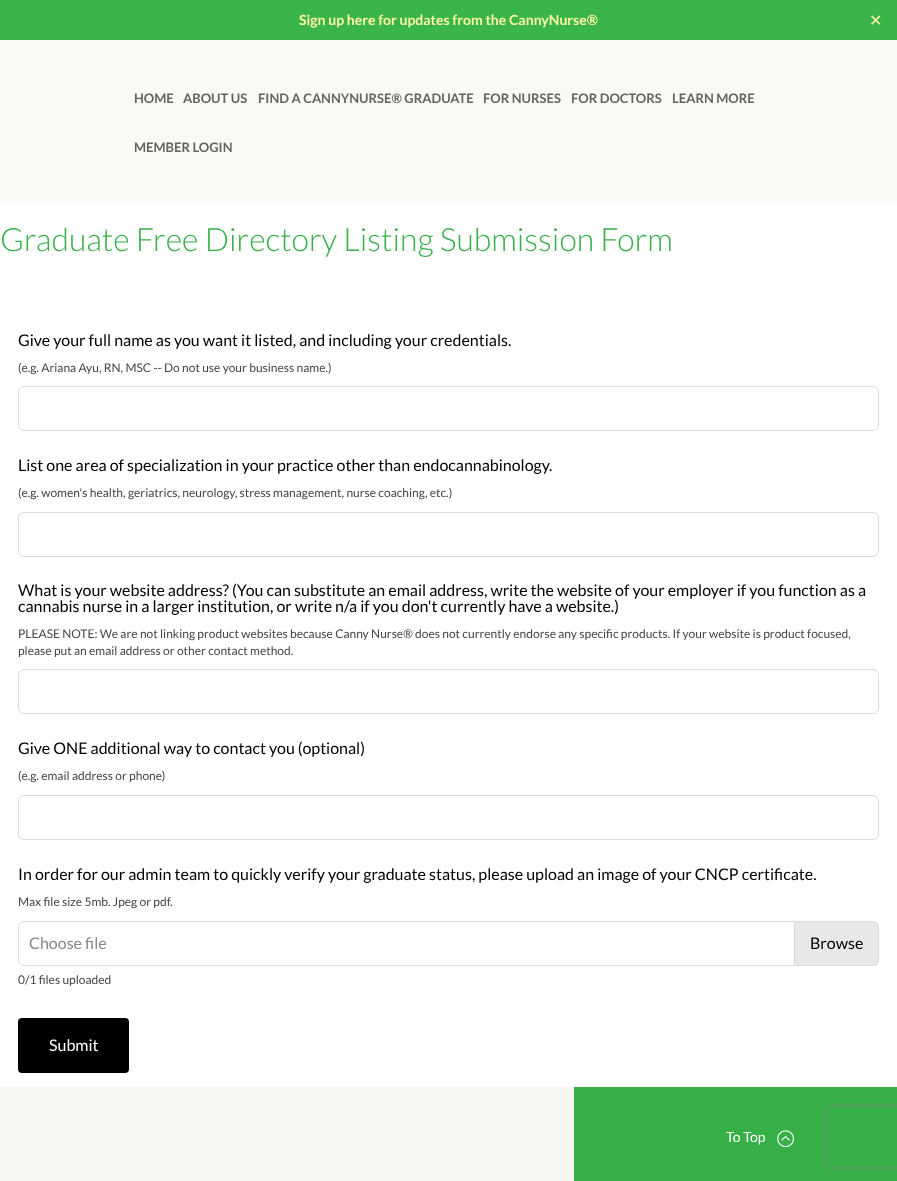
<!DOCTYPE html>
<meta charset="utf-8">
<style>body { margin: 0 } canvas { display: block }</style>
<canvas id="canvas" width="897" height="1181"></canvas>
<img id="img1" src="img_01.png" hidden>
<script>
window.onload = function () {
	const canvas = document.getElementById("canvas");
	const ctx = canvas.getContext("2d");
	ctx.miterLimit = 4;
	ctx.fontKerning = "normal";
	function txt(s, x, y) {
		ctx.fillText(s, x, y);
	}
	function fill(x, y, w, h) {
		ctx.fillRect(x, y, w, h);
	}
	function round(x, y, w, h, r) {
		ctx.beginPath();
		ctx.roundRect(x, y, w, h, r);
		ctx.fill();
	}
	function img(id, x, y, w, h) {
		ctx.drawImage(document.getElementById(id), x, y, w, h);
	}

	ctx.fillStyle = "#FFFFFF";
	fill(0, 0, 897, 1181);
	ctx.fillStyle = "#39B54A";
	fill(0, 0, 897, 40);
	ctx.fillStyle = "#FAF9F6";
	fill(0, 40, 897, 161);
	ctx.beginPath();
	ctx.roundRect(18.5, 386.5, 860, 44, 5.5);
	ctx.strokeStyle = "#DBDBDB";
	ctx.stroke();
	ctx.beginPath();
	ctx.roundRect(18.5, 512.5, 860, 44, 5.5);
	ctx.stroke();
	ctx.beginPath();
	ctx.roundRect(18.5, 669.5, 860, 44, 5.5);
	ctx.stroke();
	ctx.beginPath();
	ctx.roundRect(18.5, 795.5, 860, 44, 5.5);
	ctx.stroke();
	ctx.beginPath();
	ctx.roundRect(18.5, 921.5, 776, 44, [5.5, 0, 0, 5.5]);
	ctx.stroke();
	ctx.fillStyle = "#E8E8E8";
	ctx.beginPath();
	ctx.roundRect(795, 921, 84, 45, [0, 6, 6, 0]);
	ctx.fill();
	ctx.fillStyle = "#DBDBDB";
	ctx.beginPath();
	ctx.moveTo(795, 921);
	ctx.lineTo(873, 921);
	ctx.bezierCurveTo(876, 921, 879, 924, 879, 927);
	ctx.lineTo(879, 960);
	ctx.bezierCurveTo(879, 963, 876, 966, 873, 966);
	ctx.lineTo(795, 966);
	ctx.closePath();
	ctx.moveTo(795, 922);
	ctx.lineTo(873, 922);
	ctx.bezierCurveTo(876, 922, 878, 924, 878, 927);
	ctx.lineTo(878, 960);
	ctx.bezierCurveTo(878, 963, 876, 965, 873, 965);
	ctx.lineTo(795, 965);
	ctx.closePath();
	ctx.fill("evenodd");
	ctx.fillStyle = "#E8E8E8";
	fill(877, 925, 1, 1);
	ctx.fillStyle = "#000000";
	round(18, 1018, 111, 55, 4);
	ctx.fillStyle = "#F6F5F0";
	fill(0, 1087, 574, 94);
	ctx.fillStyle = "#37B048";
	fill(574, 1087, 323, 94);
	img("img1", 777, 1130, 17, 18);
	ctx.save();
	ctx.beginPath();
	ctx.moveTo(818, 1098);
	ctx.lineTo(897, 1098);
	ctx.lineTo(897, 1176);
	ctx.lineTo(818, 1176);
	ctx.closePath();
	ctx.moveTo(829, 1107);
	ctx.lineTo(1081, 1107);
	ctx.bezierCurveTo(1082, 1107, 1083, 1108, 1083, 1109);
	ctx.lineTo(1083, 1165);
	ctx.bezierCurveTo(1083, 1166, 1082, 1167, 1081, 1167);
	ctx.lineTo(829, 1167);
	ctx.bezierCurveTo(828, 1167, 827, 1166, 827, 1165);
	ctx.lineTo(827, 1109);
	ctx.bezierCurveTo(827, 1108, 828, 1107, 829, 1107);
	ctx.closePath();
	ctx.clip("evenodd");
	ctx.fillStyle = "#808080";
	ctx.filter = "blur(2.5px)";
	ctx.beginPath();
	ctx.roundRect(827, 1107, 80, 60, 2);
	ctx.fill();
	ctx.filter = "none";
	ctx.restore();
	ctx.font = "bold 14px Lato";
	ctx.fillStyle = "#FFF3A5";
	txt("Sign up here for updates from the CannyNurse®", 299, 25);
	ctx.font = "16px DejaVu Sans";
	txt("✕", 869, 26);
	ctx.font = "bold 13px Lato";
	ctx.fillStyle = "#646462";
	txt("HOME", 134, 103);
	txt("ABOUT US", 183, 103);
	txt("FIND A CANNYNURSE® GRADUATE", 258, 103);
	txt("FOR NURSES", 483, 103);
	txt("FOR DOCTORS", 571, 103);
	txt("LEARN MORE", 672, 103);
	txt("MEMBER LOGIN", 134, 152);
	ctx.font = "300 32px Lato";
	ctx.fillStyle = "#37B048";
	txt("Graduate Free Directory Listing Submission Form", 0, 251);
	ctx.font = "16px Lato";
	ctx.fillStyle = "#000000";
	txt("Give your full name as you want it listed, and including your credentials.", 18, 346);
	ctx.font = "12px Lato";
	ctx.fillStyle = "#454545";
	txt("(e.g. Ariana Ayu, RN, MSC -- Do not use your business name.)", 18, 372);
	ctx.font = "16px Lato";
	ctx.fillStyle = "#000000";
	txt("List one area of specialization in your practice other than endocannabinology.", 18, 471);
	ctx.font = "12px Lato";
	ctx.fillStyle = "#454545";
	txt("(e.g. women's health, geriatrics, neurology, stress management, nurse coaching, etc.)", 18, 497);
	ctx.font = "16px Lato";
	ctx.fillStyle = "#000000";
	txt("What is your website address? (You can substitute an email address, write the website of your employer if you function as a", 18, 596);
	txt("cannabis nurse in a larger institution, or write n/a if you don't currently have a website.)", 18, 612);
	ctx.font = "12px Lato";
	ctx.fillStyle = "#454545";
	txt("PLEASE NOTE: We are not linking product websites because Canny Nurse® does not currently endorse any specific products. If your website is product focused,", 18, 638);
	txt("please put an email address or other contact method.", 18, 655);
	ctx.font = "16px Lato";
	ctx.fillStyle = "#000000";
	txt("Give ONE additional way to contact you (optional)", 18, 754);
	ctx.font = "12px Lato";
	ctx.fillStyle = "#454545";
	txt("(e.g. email address or phone)", 18, 780);
	ctx.font = "16px Lato";
	ctx.fillStyle = "#000000";
	txt("In order for our admin team to quickly verify your graduate status, please upload an image of your CNCP certificate.", 18, 880);
	ctx.font = "12px Lato";
	ctx.fillStyle = "#454545";
	txt("Max file size 5mb. Jpeg or pdf.", 18, 906);
	ctx.font = "16px Lato";
	ctx.fillStyle = "#888888";
	txt("Choose file", 29, 949);
	ctx.fillStyle = "#000000";
	txt("Browse", 810, 949);
	ctx.font = "12px Lato";
	ctx.fillStyle = "#454545";
	txt("0/1 files uploaded", 18, 984);
	ctx.font = "16px Lato";
	ctx.fillStyle = "#FFFFFF";
	txt("Submit", 49, 1051);
	ctx.font = "14px Lato";
	txt("To Top", 726, 1142);
};
</script>
